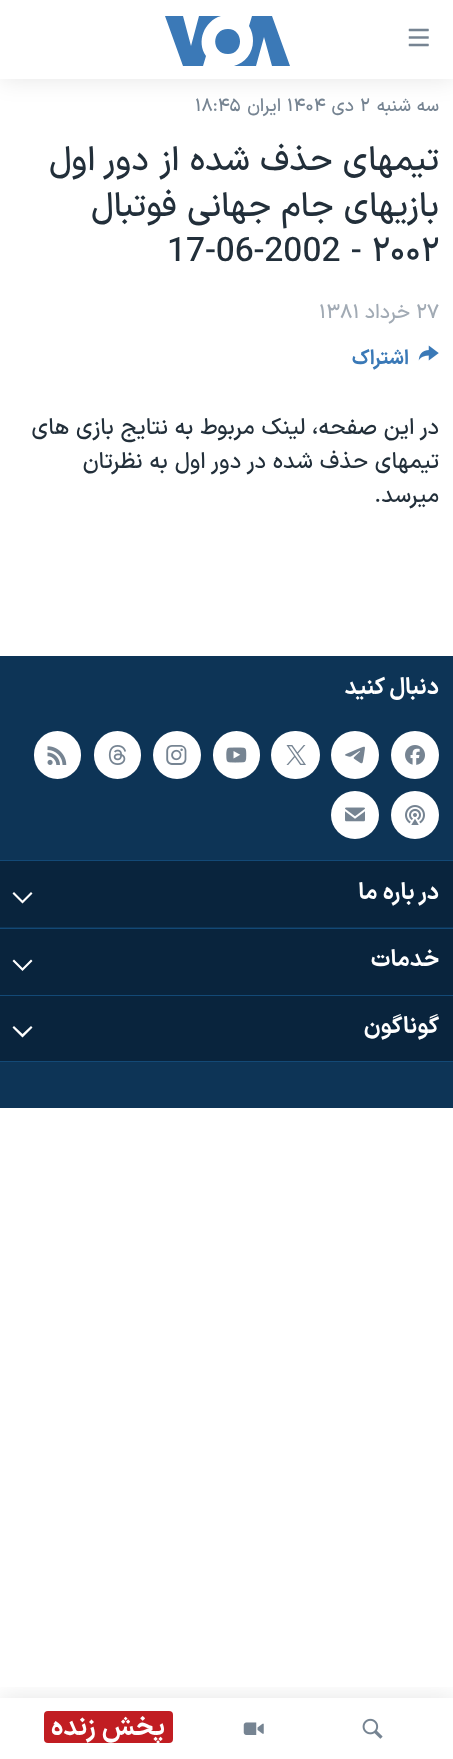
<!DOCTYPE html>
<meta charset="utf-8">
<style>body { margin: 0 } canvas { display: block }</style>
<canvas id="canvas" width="453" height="1759"></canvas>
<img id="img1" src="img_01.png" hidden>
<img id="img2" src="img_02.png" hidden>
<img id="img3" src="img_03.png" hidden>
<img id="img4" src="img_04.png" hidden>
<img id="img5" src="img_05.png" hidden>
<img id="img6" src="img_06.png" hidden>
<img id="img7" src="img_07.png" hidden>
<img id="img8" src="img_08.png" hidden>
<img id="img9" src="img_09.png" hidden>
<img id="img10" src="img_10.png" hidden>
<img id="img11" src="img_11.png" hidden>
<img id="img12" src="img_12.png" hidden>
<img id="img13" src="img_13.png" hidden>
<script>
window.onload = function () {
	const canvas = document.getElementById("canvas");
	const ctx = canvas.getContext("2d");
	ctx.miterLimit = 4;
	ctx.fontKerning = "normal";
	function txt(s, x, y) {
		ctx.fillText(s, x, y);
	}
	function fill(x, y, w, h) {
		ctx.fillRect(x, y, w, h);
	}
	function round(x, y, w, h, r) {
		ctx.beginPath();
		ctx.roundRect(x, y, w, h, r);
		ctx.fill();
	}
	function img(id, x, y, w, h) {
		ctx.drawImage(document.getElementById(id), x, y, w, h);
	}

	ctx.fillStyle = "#FFFFFF";
	fill(0, 0, 453, 1759);
	img("img1", 418, 345, 21, 16);
	ctx.fillStyle = "#0D3456";
	fill(0, 656, 453, 452);
	ctx.fillStyle = "#134976";
	fill(0, 1061, 453, 1);
	ctx.fillStyle = "#FFFFFF";
	ctx.beginPath();
	ctx.arc(415, 755, 24, 0, Math.PI * 2);
	ctx.fill();
	img("img2", 405, 745, 20, 20);
	ctx.beginPath();
	ctx.arc(355, 755, 24, 0, Math.PI * 2);
	ctx.fill();
	img("img3", 345, 746, 20, 18);
	round(271, 731, 49, 48, 24);
	img("img4", 286, 745, 20, 20);
	round(213, 731, 47, 48, 23.5);
	img("img5", 226, 747, 21, 16);
	ctx.beginPath();
	ctx.arc(177, 755, 24, 0, Math.PI * 2);
	ctx.fill();
	img("img6", 166, 745, 21, 20);
	round(94, 731, 47, 48, 23.5);
	img("img7", 108, 745, 18, 20);
	round(34, 731, 47, 48, 23.5);
	img("img8", 47, 746, 20, 19);
	ctx.beginPath();
	ctx.arc(415, 815, 24, 0, Math.PI * 2);
	ctx.fill();
	img("img9", 405, 805, 20, 20);
	ctx.beginPath();
	ctx.arc(355, 815, 24, 0, Math.PI * 2);
	ctx.fill();
	img("img10", 345, 807, 20, 15);
	ctx.fillStyle = "#134976";
	fill(0, 860, 453, 1);
	ctx.fillStyle = "#09243D";
	fill(0, 861, 453, 66);
	ctx.fillStyle = "#FFFFFF";
	ctx.beginPath();
	ctx.moveTo(12.5, 893.5);
	ctx.lineTo(22.5, 903.5);
	ctx.lineTo(32.5, 893.5);
	ctx.lineTo(31, 892);
	ctx.lineTo(22.5, 900.5);
	ctx.lineTo(14, 892);
	ctx.closePath();
	ctx.fill();
	ctx.fillStyle = "#134976";
	fill(0, 928, 453, 1);
	ctx.fillStyle = "#09243D";
	fill(0, 929, 453, 66);
	ctx.fillStyle = "#FFFFFF";
	ctx.beginPath();
	ctx.moveTo(12.5, 961);
	ctx.lineTo(22.5, 971);
	ctx.lineTo(32.5, 961);
	ctx.lineTo(31, 959.5);
	ctx.lineTo(22.5, 968);
	ctx.lineTo(14, 959.5);
	ctx.closePath();
	ctx.fill();
	ctx.fillStyle = "#134976";
	fill(0, 995, 453, 1);
	ctx.fillStyle = "#09243D";
	fill(0, 996, 453, 65);
	ctx.fillStyle = "#FFFFFF";
	ctx.beginPath();
	ctx.moveTo(12.5, 1027.5);
	ctx.lineTo(22.5, 1037.5);
	ctx.lineTo(32.5, 1027.5);
	ctx.lineTo(31, 1026);
	ctx.lineTo(22.5, 1034);
	ctx.lineTo(14, 1026);
	ctx.closePath();
	ctx.fill();
	ctx.fillStyle = "rgba(0, 0, 0, 0.1)";
	ctx.filter = "blur(12.5px)";
	ctx.beginPath();
	ctx.rect(0, 0, 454, 79);
	ctx.fill();
	ctx.filter = "none";
	ctx.fillStyle = "#FFFFFF";
	fill(0, 0, 453, 79);
	img("img11", 408, 28, 21, 19);
	ctx.fillStyle = "#3B79B7";
	ctx.beginPath();
	ctx.moveTo(206, 56);
	ctx.lineTo(203, 66);
	ctx.lineTo(183, 66);
	ctx.lineTo(165, 16);
	ctx.lineTo(183, 16);
	ctx.lineTo(191, 46);
	ctx.lineTo(199, 16);
	ctx.lineTo(221, 16);
	ctx.bezierCurveTo(204, 21, 196, 42, 206, 56);
	ctx.closePath();
	ctx.moveTo(228, 29);
	ctx.bezierCurveTo(211, 29, 211, 54, 228, 54);
	ctx.bezierCurveTo(244, 54, 244, 29, 228, 29);
	ctx.closePath();
	ctx.moveTo(253, 41);
	ctx.bezierCurveTo(253, 53, 245, 63, 234, 66);
	ctx.lineTo(256, 66);
	ctx.lineTo(264, 37);
	ctx.lineTo(272, 66);
	ctx.lineTo(290, 66);
	ctx.lineTo(272, 16);
	ctx.lineTo(252, 16);
	ctx.lineTo(249, 26);
	ctx.bezierCurveTo(252, 31, 253, 36, 253, 41);
	ctx.closePath();
	ctx.fill();
	ctx.save();
	ctx.beginPath();
	ctx.rect(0, 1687, 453, 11);
	ctx.clip();
	ctx.fillStyle = "rgba(0, 0, 0, 0.1)";
	ctx.filter = "blur(12.5px)";
	ctx.beginPath();
	ctx.rect(0, 1698, 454, 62);
	ctx.fill();
	ctx.filter = "none";
	ctx.restore();
	img("img12", 362, 1718, 21, 21);
	img("img13", 243, 1722, 21, 13);
	ctx.fillStyle = "#C11D22";
	round(44, 1711, 129, 32, 4);
	ctx.direction = "rtl";
	ctx.font = "500 18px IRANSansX";
	ctx.fillStyle = "#768492";
	txt("سه شنبه", 439, 111);
	ctx.direction = "ltr";
	txt("۲", 360, 111);
	ctx.direction = "rtl";
	txt("دی", 354, 111);
	ctx.direction = "ltr";
	txt("۱۴۰۴", 287, 111);
	ctx.direction = "rtl";
	txt("ایران", 281, 111);
	ctx.direction = "ltr";
	txt("۱۸:۴۵", 195, 111);
	ctx.direction = "rtl";
	ctx.font = "500 33.75px IRANSansX";
	ctx.fillStyle = "#222F3A";
	txt("تيمهای حذف شده از دور اول", 439, 170);
	txt("بازيهای جام جهانی فوتبال", 439, 216);
	ctx.direction = "ltr";
	txt("17-06-2002 - ٢۰۰۲", 167, 261);
	ctx.font = "500 20px IRANSansX";
	ctx.fillStyle = "#A1AAB4";
	txt("۲۷", 416, 318);
	ctx.direction = "rtl";
	txt("خرداد", 410, 318);
	ctx.direction = "ltr";
	txt("۱۳۸۱", 319, 318);
	ctx.direction = "rtl";
	ctx.font = "bold 20px IRANSansX";
	ctx.fillStyle = "#3A79B7";
	txt("اشتراک", 409, 364);
	ctx.font = "500 22.5px IRANSansX";
	ctx.fillStyle = "#222F3A";
	txt("در اين صفحه، لينک مربوط به نتايج بازی های", 439, 434);
	txt("تيمهای حذف شده در دور اول به نظرتان", 439, 468);
	txt("ميرسد.", 439, 502);
	ctx.font = "bold 23px IRANSansX";
	ctx.fillStyle = "#FFFFFF";
	txt("دنبال کنید", 439, 694);
	txt("در باره ما", 439, 899);
	txt("خدمات", 439, 966);
	txt("گوناگون", 439, 1033);
	ctx.font = "bold 26.25px IRANSansX";
	txt("پخش زنده", 165, 1735);
};
</script>
